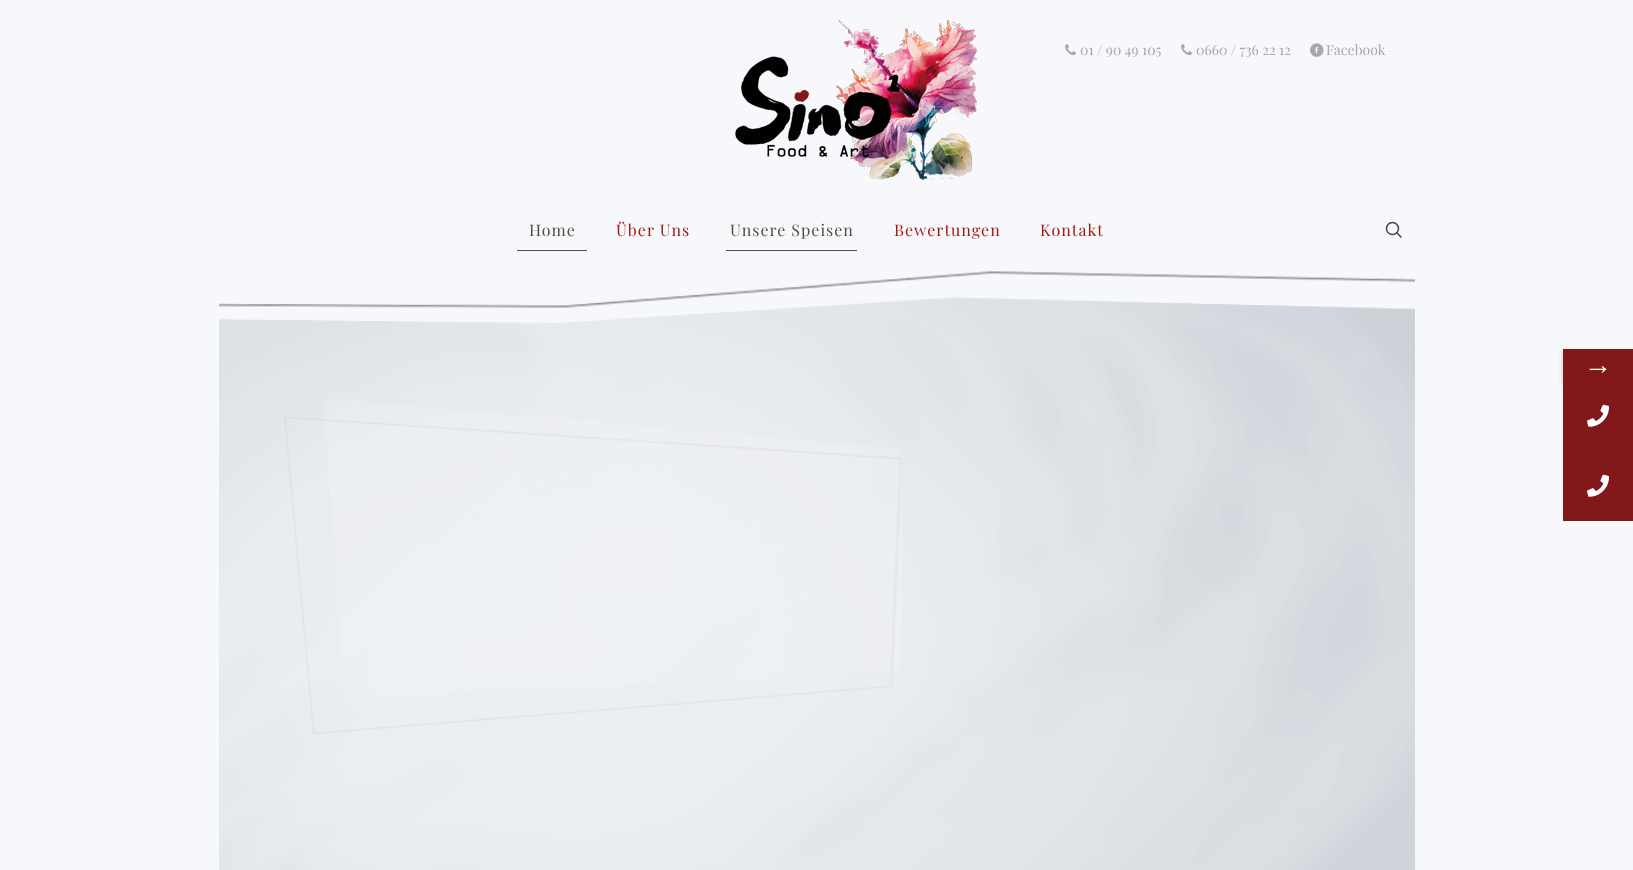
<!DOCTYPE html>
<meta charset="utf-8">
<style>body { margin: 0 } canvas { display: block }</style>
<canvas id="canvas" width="1633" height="870"></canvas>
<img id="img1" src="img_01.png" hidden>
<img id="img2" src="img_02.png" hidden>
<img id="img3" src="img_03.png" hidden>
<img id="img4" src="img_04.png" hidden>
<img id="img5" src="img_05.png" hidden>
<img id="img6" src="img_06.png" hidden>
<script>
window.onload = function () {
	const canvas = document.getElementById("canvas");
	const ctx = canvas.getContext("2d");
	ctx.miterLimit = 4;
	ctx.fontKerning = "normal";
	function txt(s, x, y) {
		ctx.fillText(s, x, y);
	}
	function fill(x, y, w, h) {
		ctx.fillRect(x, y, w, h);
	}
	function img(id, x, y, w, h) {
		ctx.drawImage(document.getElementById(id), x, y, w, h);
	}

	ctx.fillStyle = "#F6F8FB";
	fill(0, 0, 1633, 870);
	img("img1", 735, 20, 242, 160);
	img("img2", 1065, 44, 11, 12);
	img("img2", 1181, 44, 11, 12);
	img("img3", 1310, 43, 14, 14);
	ctx.fillStyle = "#5A4D3E";
	fill(517, 250, 70, 1);
	fill(726, 250, 131, 1);
	ctx.beginPath();
	ctx.arc(1392.5, 228.5, 6, 0, Math.PI * 2);
	ctx.strokeStyle = "#444444";
	ctx.lineWidth = 1.5;
	ctx.stroke();
	ctx.beginPath();
	ctx.moveTo(1396.5, 232.5);
	ctx.lineTo(1401.5, 237.5);
	ctx.stroke();
	img("img4", 219, 271, 1196, 599);
	img("img5", 284, 399, 618, 335);
	ctx.fillStyle = "rgba(0, 0, 0, 0.16)";
	ctx.filter = "blur(3px)";
	ctx.beginPath();
	ctx.rect(1563, 352, 70, 32);
	ctx.fill();
	ctx.filter = "none";
	ctx.fillStyle = "#83181A";
	fill(1563, 349, 70, 172);
	img("img6", 1587, 404, 22, 23);
	img("img6", 1587, 474, 22, 23);
	ctx.font = "14px Playfair Display";
	ctx.fillStyle = "#A8A8A8";
	txt("01 / 90 49 105", 1080, 55);
	txt("0660 / 736 22 12", 1196, 55);
	txt("Facebook", 1326, 55);
	ctx.letterSpacing = "1px";
	ctx.font = "16px Playfair Display";
	ctx.fillStyle = "#5A4D3E";
	txt("Home", 529, 236);
	ctx.fillStyle = "#9F190F";
	txt("Über Uns", 616, 236);
	ctx.fillStyle = "#5A4D3E";
	txt("Unsere Speisen", 730, 236);
	ctx.fillStyle = "#9F190F";
	txt("Bewertungen", 894, 236);
	txt("Kontakt", 1040, 236);
	ctx.letterSpacing = "0px";
	ctx.font = "28px Liberation Serif";
	ctx.fillStyle = "#FFFFFF";
	txt("→", 1584, 374);
};
</script>
